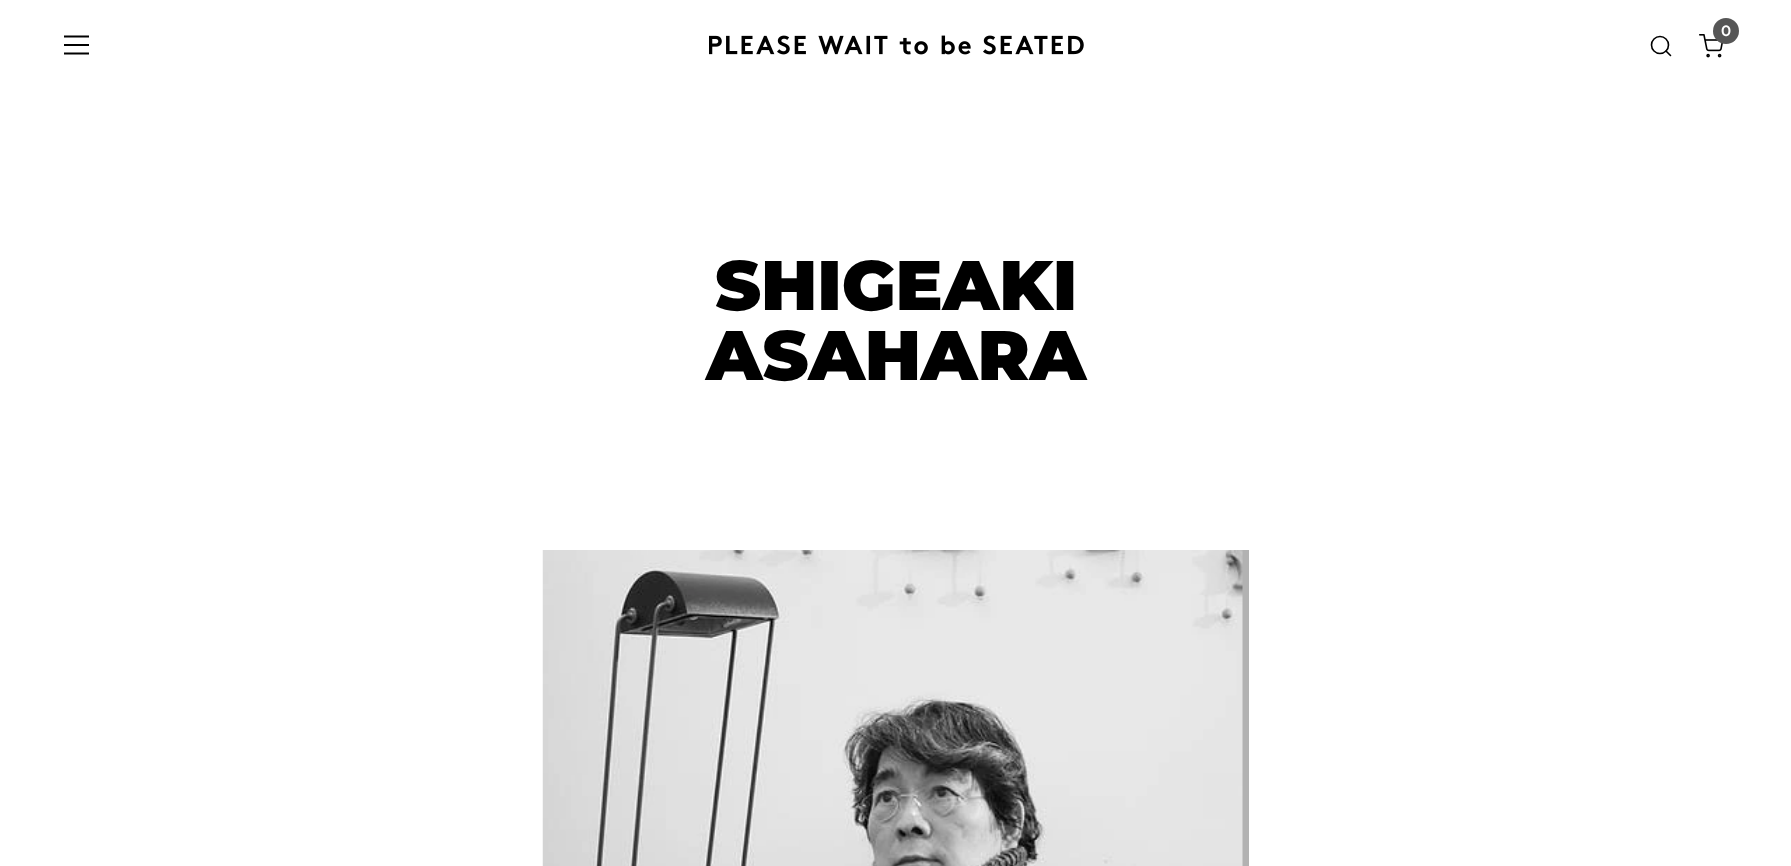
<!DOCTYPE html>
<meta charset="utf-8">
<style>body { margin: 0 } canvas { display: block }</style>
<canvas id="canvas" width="1791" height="866"></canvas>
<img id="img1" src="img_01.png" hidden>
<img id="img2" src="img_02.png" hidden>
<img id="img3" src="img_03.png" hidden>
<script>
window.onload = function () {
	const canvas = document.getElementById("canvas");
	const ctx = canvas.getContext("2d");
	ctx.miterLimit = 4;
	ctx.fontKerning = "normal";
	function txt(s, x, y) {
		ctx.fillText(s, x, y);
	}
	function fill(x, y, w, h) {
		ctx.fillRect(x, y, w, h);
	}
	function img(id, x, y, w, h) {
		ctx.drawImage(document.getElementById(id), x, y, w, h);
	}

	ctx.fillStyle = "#FFFFFF";
	fill(0, 0, 1791, 866);
	img("img1", 1699, 34, 24, 24);
	ctx.fillStyle = "#565656";
	ctx.beginPath();
	ctx.arc(1726, 31, 13, 0, Math.PI * 2);
	ctx.fill();
	ctx.fillStyle = "#000000";
	fill(64, 44, 25, 2);
	ctx.beginPath();
	ctx.moveTo(64, 36.5);
	ctx.lineTo(89, 36.5);
	ctx.moveTo(64, 53.5);
	ctx.lineTo(89, 53.5);
	ctx.strokeStyle = "#000000";
	ctx.lineWidth = 2.1;
	ctx.stroke();
	img("img2", 709, 35, 375, 20);
	ctx.beginPath();
	ctx.arc(1660, 45, 8.5, 0, Math.PI * 2);
	ctx.lineWidth = 1.6;
	ctx.stroke();
	ctx.beginPath();
	ctx.moveTo(1670.5, 55.5);
	ctx.lineTo(1666, 51);
	ctx.lineCap = "round";
	ctx.lineJoin = "round";
	ctx.stroke();
	ctx.fillStyle = "#B2B2B2";
	fill(1242, 550, 7, 316);
	img("img3", 542, 550, 701, 316);
	ctx.font = "600 15px Montserrat";
	ctx.fillStyle = "#FFFFFF";
	txt("0", 1721, 36);
	ctx.font = "900 70px Montserrat";
	ctx.fillStyle = "#000000";
	txt("SHIGEAKI", 715, 310);
	txt("ASAHARA", 706, 380);
};
</script>
